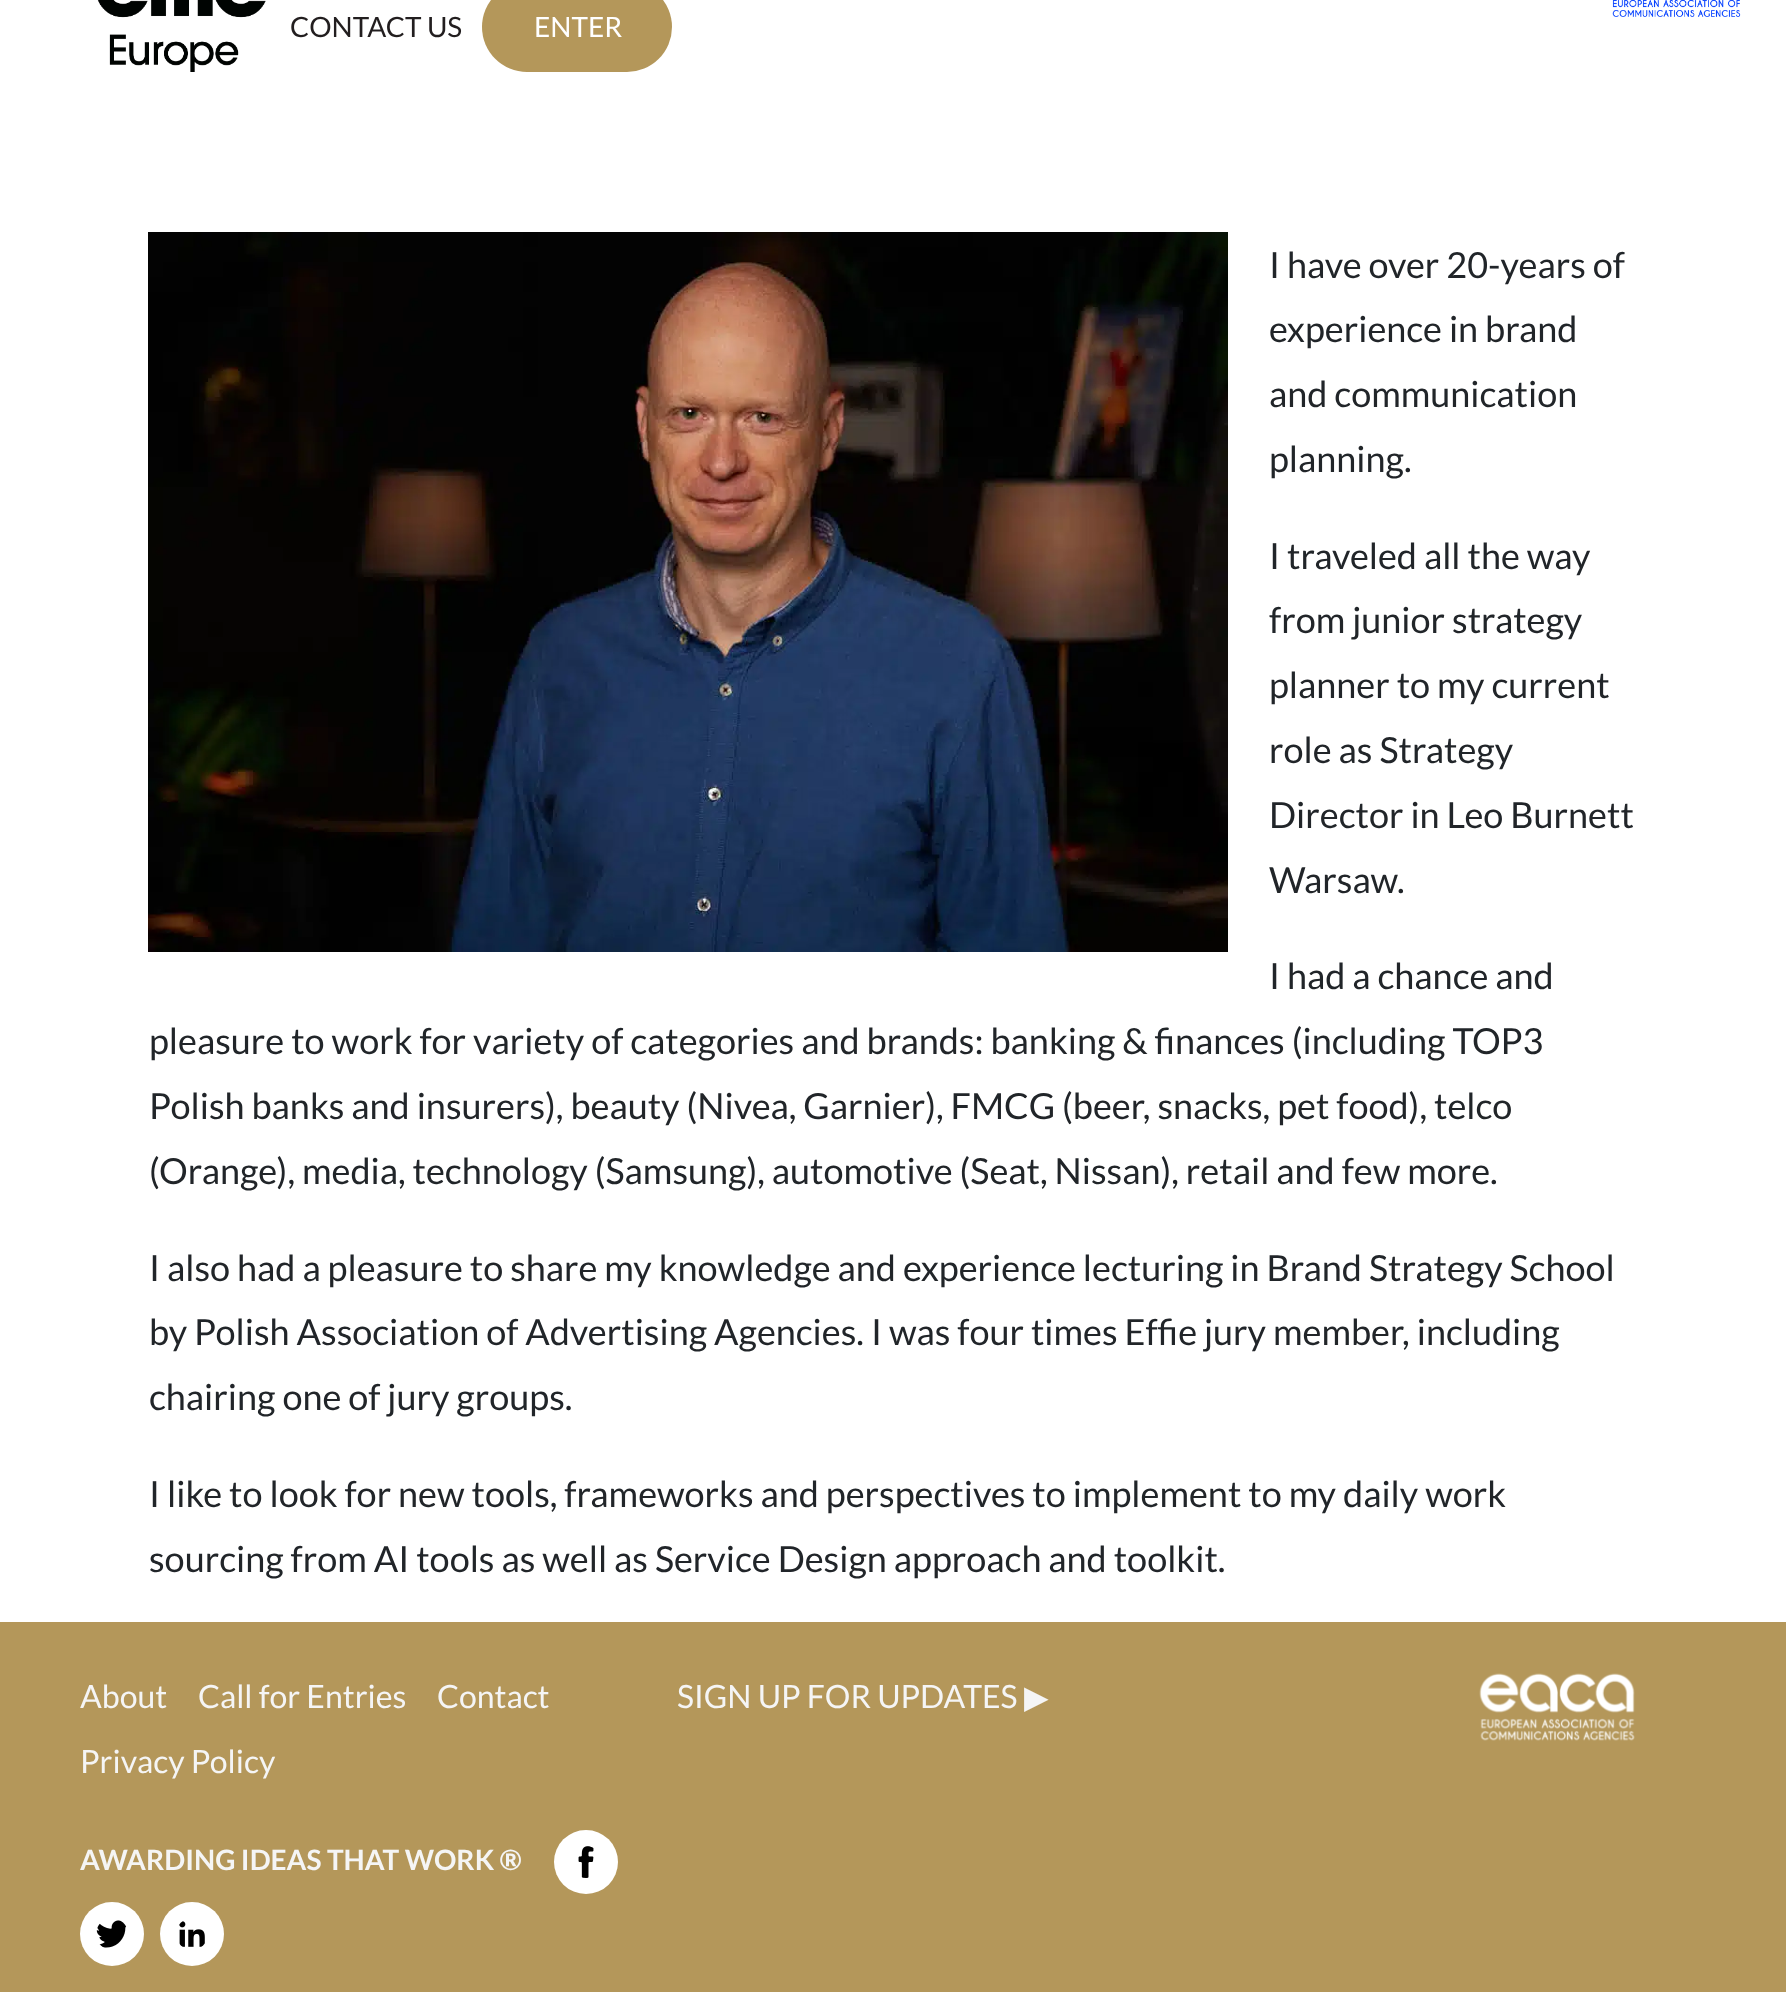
<!DOCTYPE html>
<meta charset="utf-8">
<style>body { margin: 0 } canvas { display: block }</style>
<canvas id="canvas" width="1786" height="1992"></canvas>
<img id="img1" src="img_01.png" hidden>
<img id="img2" src="img_02.png" hidden>
<img id="img3" src="img_03.png" hidden>
<img id="img4" src="img_04.png" hidden>
<img id="img5" src="img_05.png" hidden>
<img id="img6" src="img_06.png" hidden>
<img id="img7" src="img_07.png" hidden>
<script>
window.onload = function () {
	const canvas = document.getElementById("canvas");
	const ctx = canvas.getContext("2d");
	ctx.miterLimit = 4;
	ctx.fontKerning = "normal";
	function txt(s, x, y) {
		ctx.fillText(s, x, y);
	}
	function fill(x, y, w, h) {
		ctx.fillRect(x, y, w, h);
	}
	function round(x, y, w, h, r) {
		ctx.beginPath();
		ctx.roundRect(x, y, w, h, r);
		ctx.fill();
	}
	function img(id, x, y, w, h) {
		ctx.drawImage(document.getElementById(id), x, y, w, h);
	}

	ctx.fillStyle = "#FFFFFF";
	fill(0, 0, 1786, 1992);
	img("img1", 1612, 0, 129, 17);
	img("img2", 97, 0, 169, 72);
	ctx.fillStyle = "#B4975A";
	round(482, -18, 190, 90, 45);
	img("img3", 148, 232, 1080, 720);
	fill(0, 1622, 1786, 370);
	ctx.fillStyle = "#FFFFFF";
	ctx.beginPath();
	ctx.arc(586, 1862, 32, 0, Math.PI * 2);
	ctx.fill();
	ctx.beginPath();
	ctx.arc(112, 1934, 32, 0, Math.PI * 2);
	ctx.fill();
	ctx.beginPath();
	ctx.arc(192, 1934, 32, 0, Math.PI * 2);
	ctx.fill();
	img("img4", 578, 1846, 16, 32);
	img("img5", 96, 1920, 31, 28);
	img("img6", 179, 1921, 26, 26);
	img("img7", 1479, 1673, 156, 68);
	ctx.font = "28px Lato";
	ctx.fillStyle = "#221E1F";
	txt("CONTACT US", 290, 37);
	ctx.fillStyle = "#FFFFFF";
	txt("ENTER", 534, 37);
	ctx.font = "36px Lato";
	ctx.fillStyle = "#212529";
	txt("I have over 20-years of", 1269, 278);
	txt("experience in brand", 1269, 342);
	txt("and communication", 1269, 407);
	txt("planning.", 1269, 472);
	txt("I traveled all the way", 1269, 569);
	txt("from junior strategy", 1269, 633);
	txt("planner to my current", 1269, 698);
	txt("role as Strategy", 1269, 763);
	txt("Director in Leo Burnett", 1269, 828);
	txt("Warsaw.", 1269, 893);
	txt("I had a chance and", 1269, 989);
	txt("pleasure to work for variety of categories and brands: banking & finances (including TOP3", 149, 1054);
	txt("Polish banks and insurers), beauty (Nivea, Garnier), FMCG (beer, snacks, pet food), telco", 149, 1119);
	txt("(Orange), media, technology (Samsung), automotive (Seat, Nissan), retail and few more.", 149, 1184);
	txt("I also had a pleasure to share my knowledge and experience lecturing in Brand Strategy School", 149, 1281);
	txt("by Polish Association of Advertising Agencies. I was four times Effie jury member, including", 149, 1345);
	txt("chairing one of jury groups.", 149, 1410);
	txt("I like to look for new tools, frameworks and perspectives to implement to my daily work", 149, 1507);
	txt("sourcing from AI tools as well as Service Design approach and toolkit.", 149, 1572);
	ctx.font = "32px Lato";
	ctx.fillStyle = "#F5F5F5";
	txt("About", 80, 1708);
	txt("Call for Entries", 198, 1708);
	txt("Contact", 437, 1708);
	txt("Privacy Policy", 80, 1773);
	ctx.font = "bold 28px Lato";
	txt("AWARDING IDEAS THAT WORK ®", 80, 1870);
	ctx.font = "32px Lato";
	txt("SIGN UP FOR UPDATES", 677, 1708);
	ctx.font = "32px DejaVu Sans";
	txt("▶", 1024, 1708);
};
</script>
